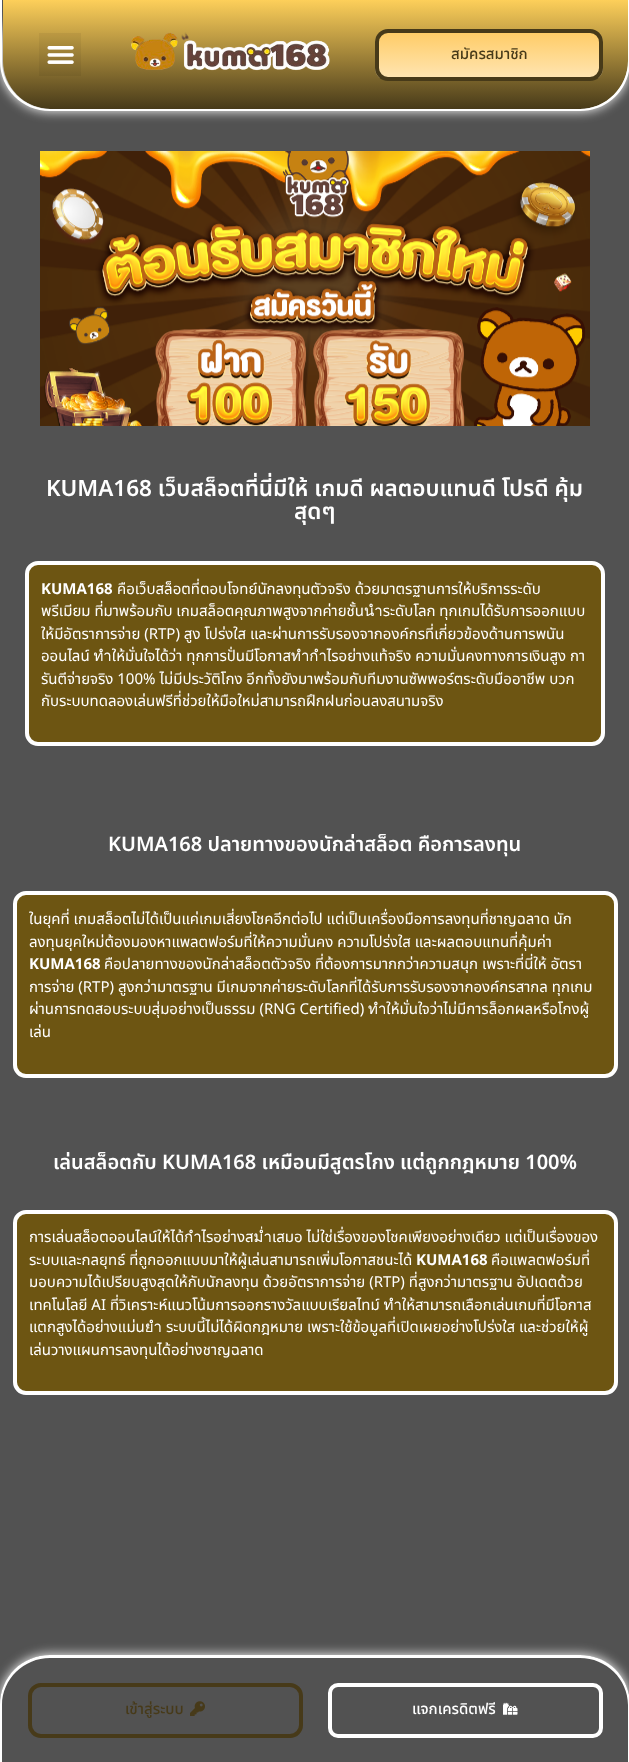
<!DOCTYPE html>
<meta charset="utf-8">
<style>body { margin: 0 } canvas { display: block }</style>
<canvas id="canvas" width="629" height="1762"></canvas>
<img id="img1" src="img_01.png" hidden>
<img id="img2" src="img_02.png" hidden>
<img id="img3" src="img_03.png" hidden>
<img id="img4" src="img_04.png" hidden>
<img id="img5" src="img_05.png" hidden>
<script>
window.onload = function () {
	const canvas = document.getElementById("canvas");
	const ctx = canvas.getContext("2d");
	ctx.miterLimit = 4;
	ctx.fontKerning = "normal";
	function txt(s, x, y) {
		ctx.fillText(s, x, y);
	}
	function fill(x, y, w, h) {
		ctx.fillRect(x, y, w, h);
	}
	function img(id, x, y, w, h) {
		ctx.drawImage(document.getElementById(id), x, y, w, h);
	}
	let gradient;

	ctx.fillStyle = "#525252";
	fill(0, 0, 629, 1762);
	ctx.fillStyle = "#FFFFFF";
	ctx.filter = "blur(6px)";
	ctx.beginPath();
	ctx.roundRect(0, 0, 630, 111, 50);
	ctx.fill();
	ctx.filter = "none";
	gradient = ctx.createLinearGradient(315, 0, 315, 109);
	gradient.addColorStop(0, "#FDCF5A");
	gradient.addColorStop(1, "#473A19");
	ctx.fillStyle = gradient;
	ctx.beginPath();
	ctx.roundRect(3, 0, 625, 109, [0, 0, 48, 48]);
	ctx.fill();
	ctx.fillStyle = "#FFFFFF";
	ctx.beginPath();
	ctx.moveTo(0, 0);
	ctx.lineTo(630, 0);
	ctx.lineTo(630, 61);
	ctx.bezierCurveTo(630, 89, 608, 111, 580, 111);
	ctx.lineTo(50, 111);
	ctx.bezierCurveTo(22, 111, 0, 89, 0, 61);
	ctx.closePath();
	ctx.moveTo(2, 0);
	ctx.lineTo(628, 0);
	ctx.lineTo(628, 61);
	ctx.bezierCurveTo(628, 87, 606, 109, 580, 109);
	ctx.lineTo(50, 109);
	ctx.bezierCurveTo(24, 109, 2, 87, 2, 61);
	ctx.closePath();
	ctx.fill("evenodd");
	ctx.fillStyle = "rgba(0, 0, 0, 0.05)";
	fill(39, 33, 42, 43);
	img("img1", 47, 46, 27, 18);
	img("img2", 131, 32, 199, 39);
	ctx.save();
	ctx.beginPath();
	ctx.roundRect(375, 29, 228, 52, 13);
	ctx.clip();
	gradient = ctx.createLinearGradient(489, 32, 489, 78);
	gradient.addColorStop(0, "#FFCC66");
	gradient.addColorStop(1, "#FFE5B2");
	ctx.fillStyle = gradient;
	fill(375, 33, 228, 45);
	ctx.restore();
	ctx.beginPath();
	ctx.roundRect(377, 31, 224, 48, 11);
	ctx.strokeStyle = "#473A19";
	ctx.lineWidth = 4;
	ctx.stroke();
	ctx.save();
	ctx.beginPath();
	ctx.moveTo(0, 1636);
	ctx.lineTo(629, 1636);
	ctx.lineTo(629, 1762);
	ctx.lineTo(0, 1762);
	ctx.closePath();
	ctx.moveTo(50, 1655);
	ctx.lineTo(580, 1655);
	ctx.bezierCurveTo(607.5, 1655, 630, 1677.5, 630, 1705);
	ctx.lineTo(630, 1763);
	ctx.lineTo(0, 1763);
	ctx.lineTo(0, 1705);
	ctx.bezierCurveTo(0, 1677.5, 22.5, 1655, 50, 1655);
	ctx.closePath();
	ctx.clip("evenodd");
	ctx.fillStyle = "#FFFFFF";
	ctx.filter = "blur(6px)";
	ctx.beginPath();
	ctx.roundRect(0, 1655, 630, 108, 50);
	ctx.fill();
	ctx.filter = "none";
	ctx.restore();
	ctx.fillStyle = "#FFFFFF";
	ctx.beginPath();
	ctx.moveTo(50, 1655);
	ctx.lineTo(580, 1655);
	ctx.bezierCurveTo(608, 1655, 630, 1677, 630, 1705);
	ctx.lineTo(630, 1762);
	ctx.lineTo(0, 1762);
	ctx.lineTo(0, 1705);
	ctx.bezierCurveTo(0, 1677, 22, 1655, 50, 1655);
	ctx.closePath();
	ctx.moveTo(50, 1658);
	ctx.lineTo(580, 1658);
	ctx.bezierCurveTo(606, 1658, 628, 1679, 628, 1705);
	ctx.lineTo(628, 1762);
	ctx.lineTo(2, 1762);
	ctx.lineTo(2, 1705);
	ctx.bezierCurveTo(2, 1679, 24, 1658, 50, 1658);
	ctx.closePath();
	ctx.fill("evenodd");
	ctx.beginPath();
	ctx.roundRect(30, 1685, 271, 51, 11);
	ctx.stroke();
	img("img3", 190, 1701, 15, 15);
	ctx.beginPath();
	ctx.roundRect(330, 1685, 271, 51, 8);
	ctx.strokeStyle = "#FFFFFF";
	ctx.stroke();
	img("img4", 503, 1702, 15, 13);
	img("img5", 40, 151, 550, 275);
	ctx.fillStyle = "#6D5512";
	ctx.beginPath();
	ctx.roundRect(27, 563, 576, 181, 11);
	ctx.fill();
	ctx.stroke();
	ctx.beginPath();
	ctx.roundRect(15, 893, 601, 183, 11);
	ctx.fill();
	ctx.stroke();
	ctx.beginPath();
	ctx.roundRect(15, 1212, 601, 181, 11);
	ctx.fill();
	ctx.stroke();
	ctx.font = "500 15px Noto Sans Thai";
	ctx.fillStyle = "#473A19";
	txt("สมัครสมาชิก", 451, 59);
	txt("เข้าสู่ระบบ", 125, 1714);
	ctx.fillStyle = "#FFFFFF";
	txt("แจกเครดิตฟรี", 412, 1714);
	ctx.font = "600 22.5px Noto Sans Thai";
	txt("KUMA168 เว็บสล็อตที่นี่มีให้ เกมดี ผลตอบแทนดี โปรดี คุ้ม", 46, 496);
	txt("สุดๆ", 294, 519);
	ctx.font = "bold 15px Noto Sans Thai";
	txt("KUMA168", 41, 594);
	ctx.font = "15px Noto Sans Thai";
	txt("คือเว็บสล็อตที่ตอบโจทย์นักลงทุนตัวจริง ด้วยมาตรฐานการให้บริการระดับ", 117, 594);
	txt("พรีเมียม ที่มาพร้อมกับ เกมสล็อตคุณภาพสูงจากค่ายชั้นนำระดับโลก ทุกเกมได้รับการออกแบบ", 41, 616);
	txt("ให้มีอัตราการจ่าย (RTP) สูง โปร่งใส และผ่านการรับรองจากองค์กรที่เกี่ยวข้องด้านการพนัน", 41, 639);
	txt("ออนไลน์ ทำให้มั่นใจได้ว่า ทุกการปั่นมีโอกาสทำกำไรอย่างแท้จริง ความมั่นคงทางการเงินสูง กา", 41, 661);
	txt("รันตีจ่ายจริง 100% ไม่มีประวัติโกง อีกทั้งยังมาพร้อมกับทีมงานซัพพอร์ตระดับมืออาชีพ บวก", 41, 684);
	txt("กับระบบทดลองเล่นฟรีที่ช่วยให้มือใหม่สามารถฝึกฝนก่อนลงสนามจริง", 41, 706);
	ctx.font = "600 20px Noto Sans Thai";
	txt("KUMA168 ปลายทางของนักล่าสล็อต คือการลงทุน", 108, 851);
	ctx.font = "15px Noto Sans Thai";
	txt("ในยุคที่ เกมสล็อตไม่ได้เป็นแค่เกมเสี่ยงโชคอีกต่อไป แต่เป็นเครื่องมือการลงทุนที่ชาญฉลาด นัก", 29, 924);
	txt("ลงทุนยุคใหม่ต้องมองหาแพลตฟอร์มที่ให้ความมั่นคง ความโปร่งใส และผลตอบแทนที่คุ้มค่า", 29, 947);
	ctx.font = "bold 15px Noto Sans Thai";
	txt("KUMA168", 29, 969);
	ctx.font = "15px Noto Sans Thai";
	txt("คือปลายทางของนักล่าสล็อตตัวจริง ที่ต้องการมากกว่าความสนุก เพราะที่นี่ให้ อัตรา", 104, 969);
	txt("การจ่าย (RTP) สูงกว่ามาตรฐาน มีเกมจากค่ายระดับโลกที่ได้รับการรับรองจากองค์กรสากล ทุกเกม", 29, 992);
	txt("ผ่านการทดสอบระบบสุ่มอย่างเป็นธรรม (RNG Certified) ทำให้มั่นใจว่าไม่มีการล็อกผลหรือโกงผู้", 29, 1014);
	txt("เล่น", 29, 1037);
	ctx.font = "600 20px Noto Sans Thai";
	txt("เล่นสล็อตกับ KUMA168 เหมือนมีสูตรโกง แต่ถูกกฎหมาย 100%", 53, 1169);
	ctx.font = "15px Noto Sans Thai";
	txt("การเล่นสล็อตออนไลน์ให้ได้กำไรอย่างสม่ำเสมอ ไม่ใช่เรื่องของโชคเพียงอย่างเดียว แต่เป็นเรื่องของ", 29, 1242);
	txt("ระบบและกลยุทธ์ ที่ถูกออกแบบมาให้ผู้เล่นสามารถเพิ่มโอกาสชนะได้", 29, 1265);
	ctx.font = "bold 15px Noto Sans Thai";
	txt("KUMA168", 416, 1265);
	ctx.font = "15px Noto Sans Thai";
	txt("คือแพลตฟอร์มที่", 491, 1265);
	txt("มอบความได้เปรียบสูงสุดให้กับนักลงทุน ด้วยอัตราการจ่าย (RTP) ที่สูงกว่ามาตรฐาน อัปเดตด้วย", 29, 1287);
	txt("เทคโนโลยี AI ที่วิเคราะห์แนวโน้มการออกรางวัลแบบเรียลไทม์ ทำให้สามารถเลือกเล่นเกมที่มีโอกาส", 29, 1310);
	txt("แตกสูงได้อย่างแม่นยำ ระบบนี้ไม่ได้ผิดกฎหมาย เพราะใช้ข้อมูลที่เปิดเผยอย่างโปร่งใส และช่วยให้ผู้", 29, 1332);
	txt("เล่นวางแผนการลงทุนได้อย่างชาญฉลาด", 29, 1355);
};
</script>
